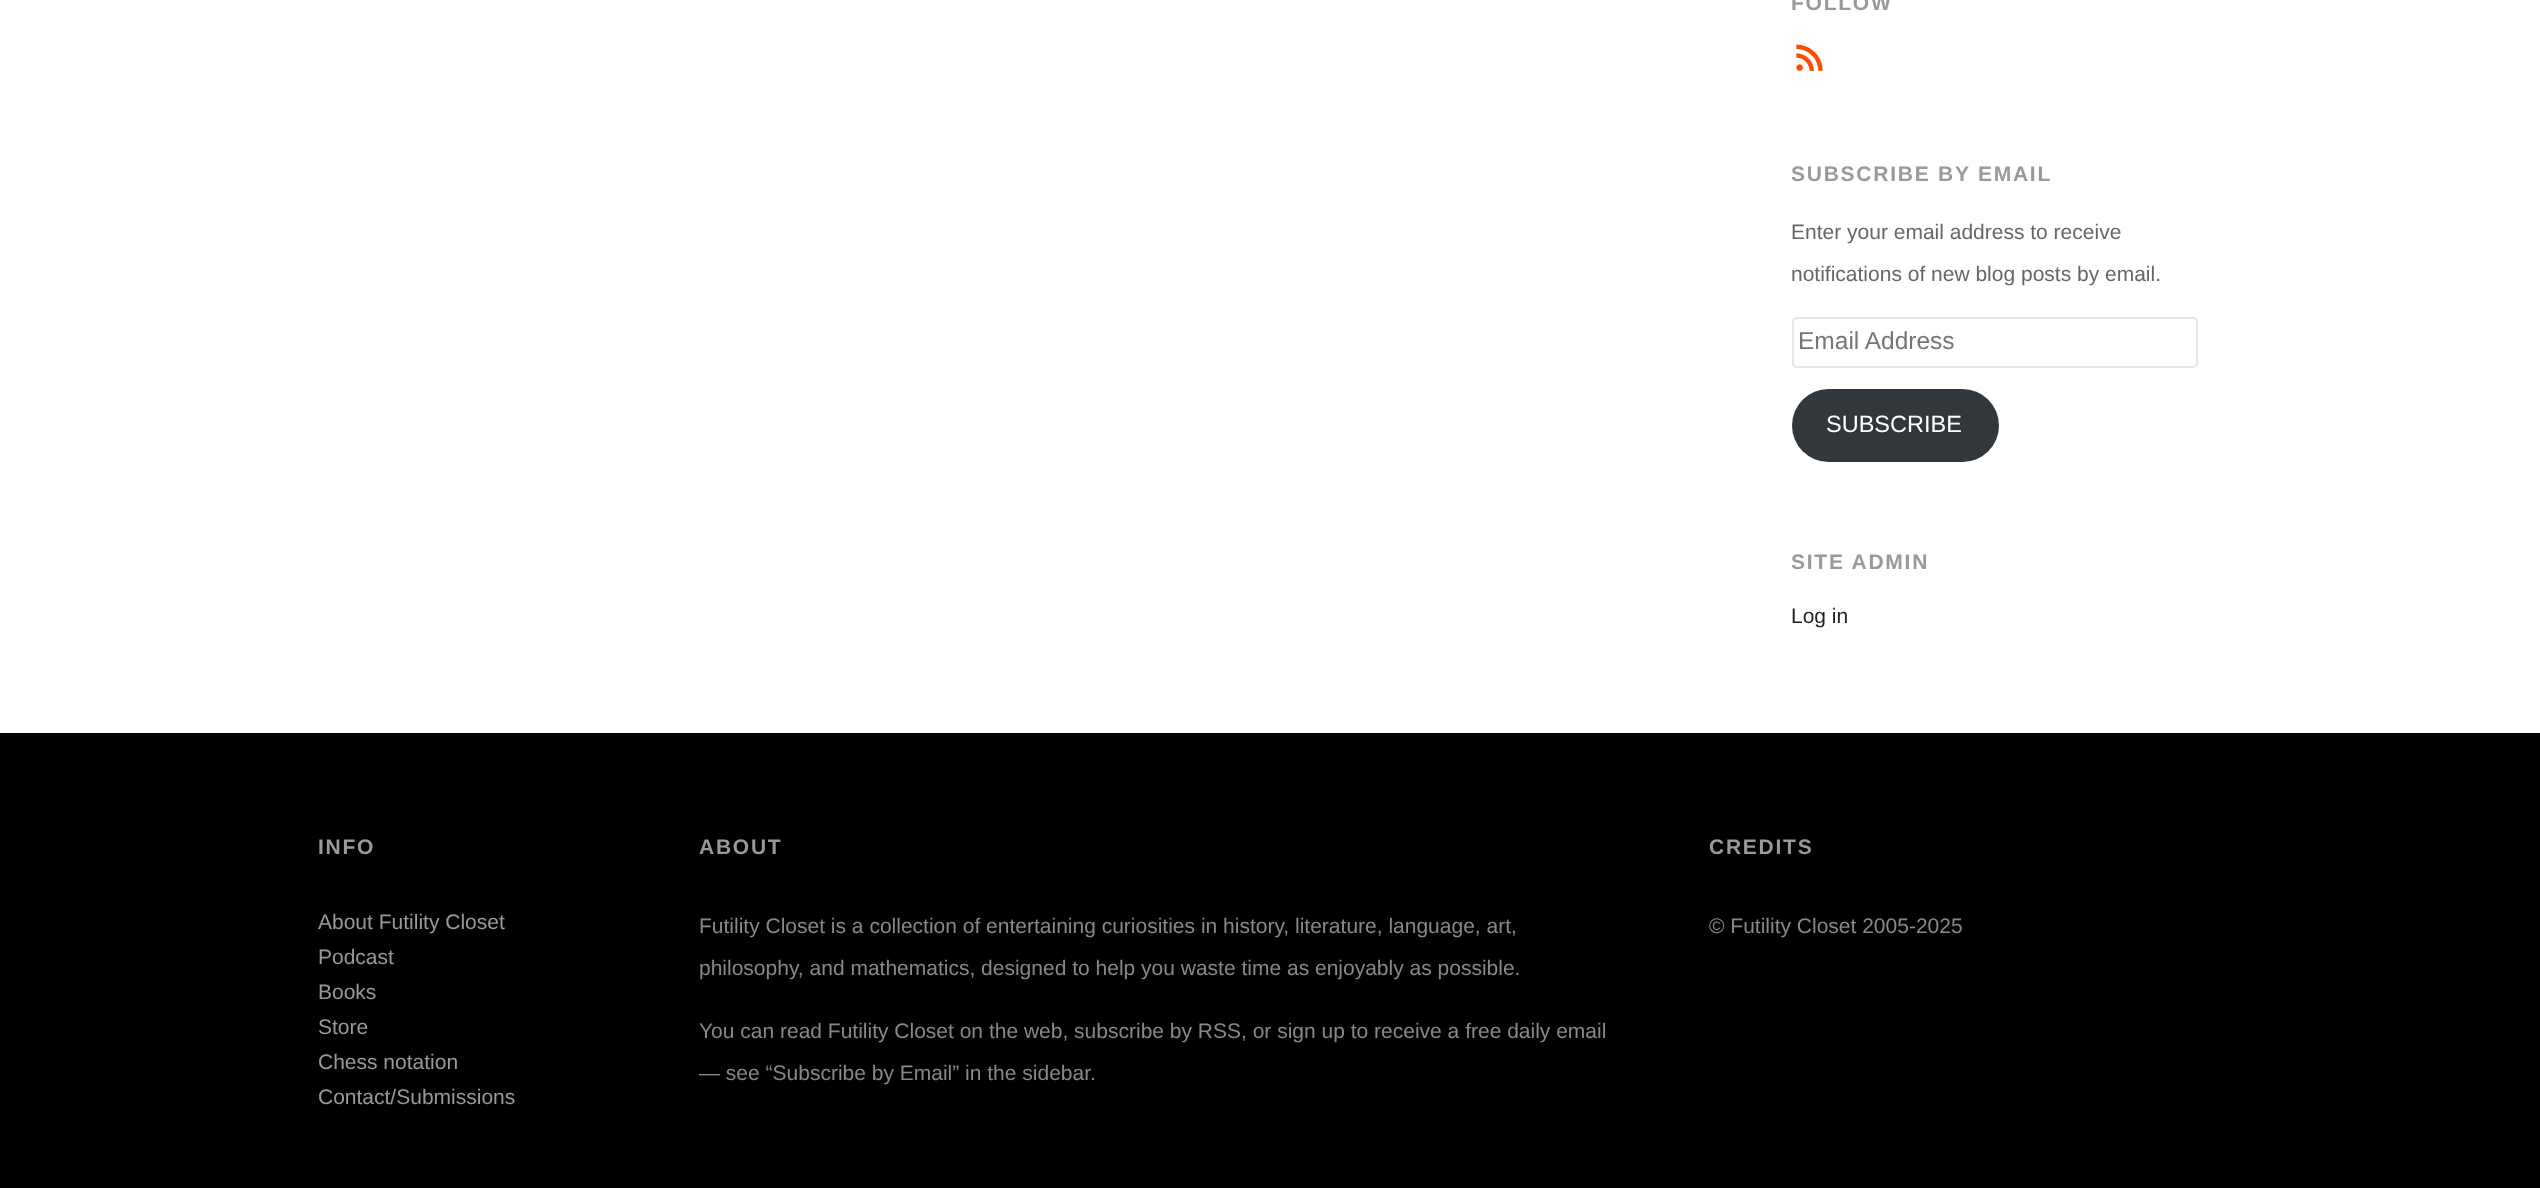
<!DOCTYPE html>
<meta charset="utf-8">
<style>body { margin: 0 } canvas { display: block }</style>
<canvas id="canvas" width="2540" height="1188"></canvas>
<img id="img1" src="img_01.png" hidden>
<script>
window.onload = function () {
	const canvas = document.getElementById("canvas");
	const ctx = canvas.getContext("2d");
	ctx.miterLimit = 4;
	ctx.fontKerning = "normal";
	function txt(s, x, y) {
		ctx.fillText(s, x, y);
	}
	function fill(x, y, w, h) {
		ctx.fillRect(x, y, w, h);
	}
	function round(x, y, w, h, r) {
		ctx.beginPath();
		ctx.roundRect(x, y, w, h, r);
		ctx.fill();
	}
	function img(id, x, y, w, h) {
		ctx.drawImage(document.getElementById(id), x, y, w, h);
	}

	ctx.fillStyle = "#FFFFFF";
	fill(0, 0, 2540, 1188);
	img("img1", 1796, 44, 27, 27);
	ctx.beginPath();
	ctx.roundRect(1793, 318, 404, 49, 4);
	ctx.strokeStyle = "#E6E6E6";
	ctx.lineWidth = 2;
	ctx.stroke();
	ctx.fillStyle = "#32373C";
	round(1792, 389, 207, 73, 36.5);
	ctx.fillStyle = "#000000";
	fill(0, 733, 2540, 455);
	ctx.letterSpacing = "1.75px";
	ctx.font = "bold 21px Liberation Sans";
	ctx.fillStyle = "#999999";
	txt("FOLLOW", 1791, 10);
	txt("SUBSCRIBE BY EMAIL", 1791, 181);
	ctx.letterSpacing = "0px";
	ctx.font = "21px Liberation Sans";
	ctx.fillStyle = "#666666";
	txt("Enter your email address to receive", 1791, 239);
	txt("notifications of new blog posts by email.", 1791, 281);
	ctx.font = "24.5px Liberation Sans";
	ctx.fillStyle = "#757575";
	txt("Email Address", 1798, 349);
	ctx.font = "23.5px Liberation Sans";
	ctx.fillStyle = "#FFFFFF";
	txt("SUBSCRIBE", 1826, 432);
	ctx.letterSpacing = "1.75px";
	ctx.font = "bold 21px Liberation Sans";
	ctx.fillStyle = "#999999";
	txt("SITE ADMIN", 1791, 569);
	ctx.letterSpacing = "0px";
	ctx.font = "21px Liberation Sans";
	ctx.fillStyle = "#222222";
	txt("Log in", 1791, 623);
	ctx.letterSpacing = "1.75px";
	ctx.font = "bold 21px Liberation Sans";
	ctx.fillStyle = "#999999";
	txt("INFO", 318, 854);
	ctx.letterSpacing = "0px";
	ctx.font = "21px Liberation Sans";
	txt("About Futility Closet", 318, 929);
	txt("Podcast", 318, 964);
	txt("Books", 318, 999);
	txt("Store", 318, 1034);
	txt("Chess notation", 318, 1069);
	txt("Contact/Submissions", 318, 1104);
	ctx.letterSpacing = "1.75px";
	ctx.font = "bold 21px Liberation Sans";
	txt("ABOUT", 699, 854);
	ctx.letterSpacing = "0px";
	ctx.font = "21px Liberation Sans";
	ctx.fillStyle = "#888888";
	txt("Futility Closet is a collection of entertaining curiosities in history, literature, language, art,", 699, 933);
	txt("philosophy, and mathematics, designed to help you waste time as enjoyably as possible.", 699, 975);
	txt("You can read Futility Closet on the web, subscribe by RSS, or sign up to receive a free daily email", 699, 1038);
	txt("— see “Subscribe by Email” in the sidebar.", 699, 1080);
	ctx.letterSpacing = "1.75px";
	ctx.font = "bold 21px Liberation Sans";
	ctx.fillStyle = "#999999";
	txt("CREDITS", 1709, 854);
	ctx.letterSpacing = "0px";
	ctx.font = "21px Liberation Sans";
	ctx.fillStyle = "#888888";
	txt("© Futility Closet 2005-2025", 1709, 933);
};
</script>
